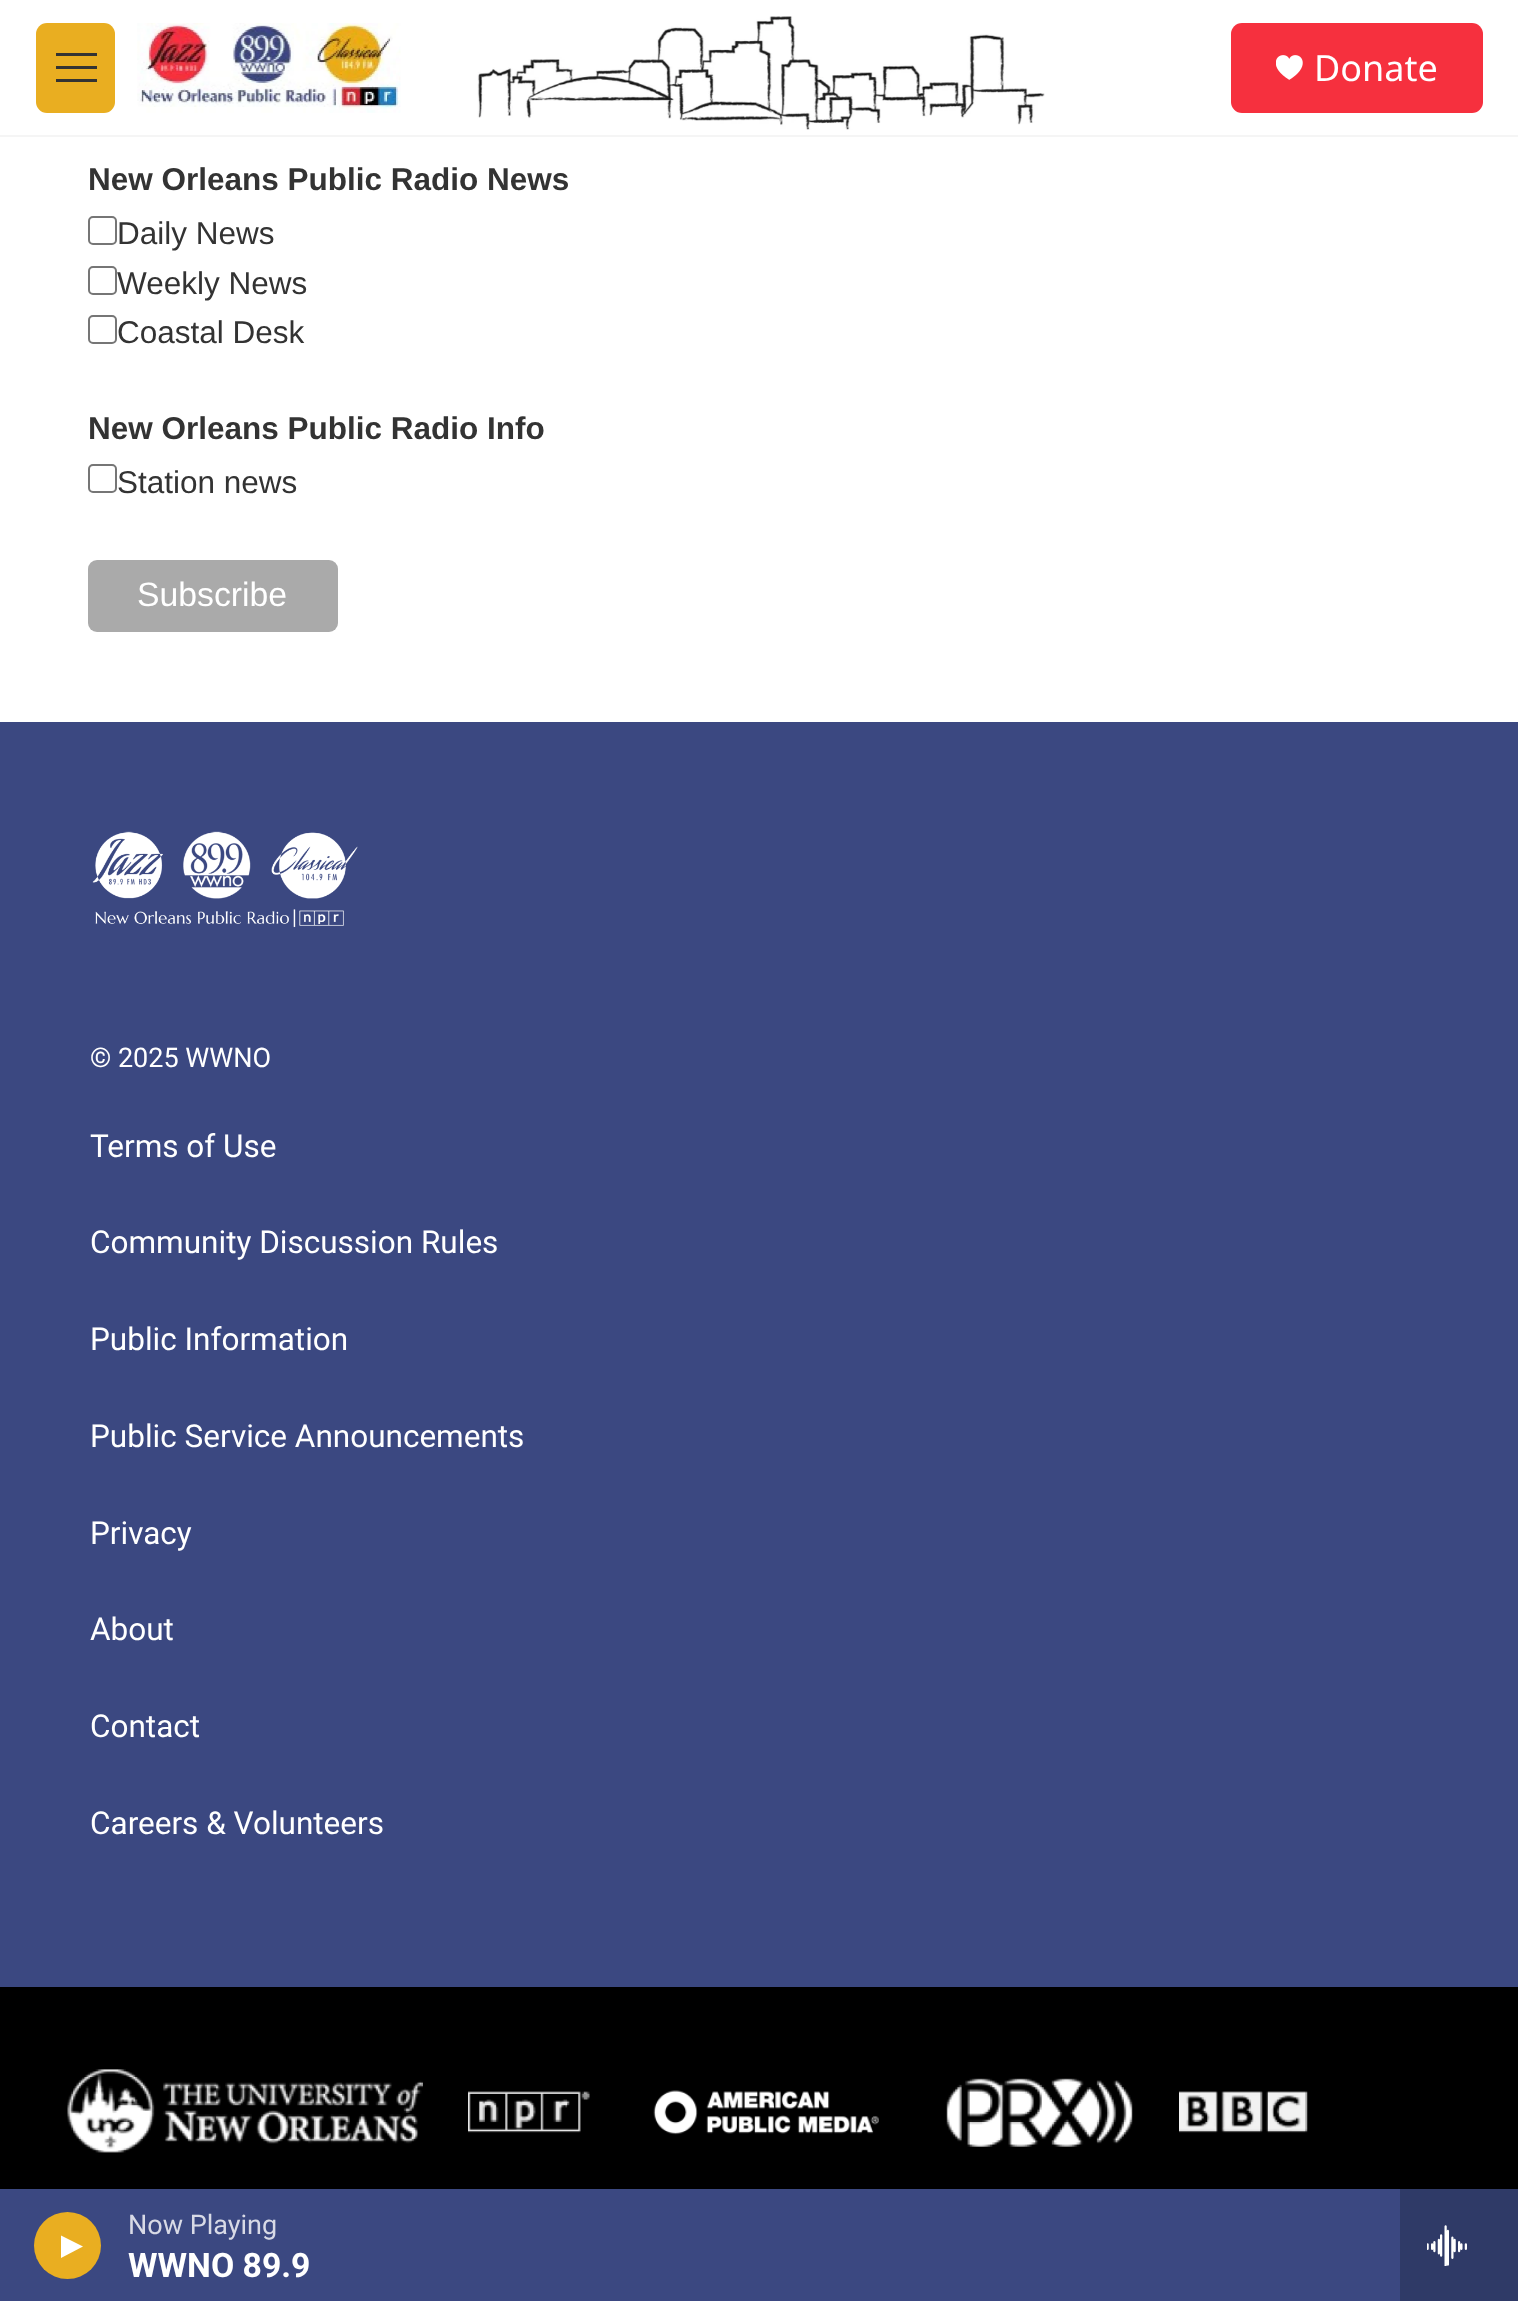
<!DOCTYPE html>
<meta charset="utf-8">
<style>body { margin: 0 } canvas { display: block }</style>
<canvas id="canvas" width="1518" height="2301"></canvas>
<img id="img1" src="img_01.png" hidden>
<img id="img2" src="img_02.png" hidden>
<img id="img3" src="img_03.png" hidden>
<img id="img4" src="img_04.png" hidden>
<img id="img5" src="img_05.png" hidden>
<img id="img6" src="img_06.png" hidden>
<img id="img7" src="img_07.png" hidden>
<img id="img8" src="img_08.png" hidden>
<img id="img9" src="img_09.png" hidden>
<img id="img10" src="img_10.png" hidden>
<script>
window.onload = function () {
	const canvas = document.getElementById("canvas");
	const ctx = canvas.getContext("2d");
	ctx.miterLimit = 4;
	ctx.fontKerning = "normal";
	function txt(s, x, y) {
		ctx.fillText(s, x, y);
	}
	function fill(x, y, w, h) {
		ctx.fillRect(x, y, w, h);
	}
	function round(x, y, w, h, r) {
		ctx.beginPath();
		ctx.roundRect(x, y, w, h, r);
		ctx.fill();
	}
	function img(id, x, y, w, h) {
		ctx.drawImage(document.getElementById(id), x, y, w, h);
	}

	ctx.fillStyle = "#FFFFFF";
	fill(0, 0, 1518, 2301);
	ctx.fillStyle = "#F5F5F5";
	fill(0, 135, 1518, 2);
	img("img1", 477, 16, 568, 114);
	ctx.fillStyle = "#E9AE21";
	round(36, 23, 79, 90, 11);
	ctx.fillStyle = "#333333";
	ctx.beginPath();
	ctx.moveTo(56, 69);
	ctx.lineTo(56, 66);
	ctx.lineTo(97, 66);
	ctx.lineTo(97, 69);
	ctx.closePath();
	ctx.moveTo(56, 56);
	ctx.lineTo(56, 53);
	ctx.lineTo(97, 53);
	ctx.lineTo(97, 56);
	ctx.closePath();
	ctx.moveTo(56, 82);
	ctx.lineTo(56, 79);
	ctx.lineTo(97, 79);
	ctx.lineTo(97, 82);
	ctx.closePath();
	ctx.fill("evenodd");
	img("img2", 137, 23, 264, 90);
	ctx.fillStyle = "#F6303E";
	round(1231, 23, 252, 90, 11);
	img("img3", 1276, 55, 27, 25);
	ctx.fillStyle = "#3B4881";
	fill(0, 2189, 1400, 112);
	ctx.fillStyle = "#E9AE21";
	ctx.beginPath();
	ctx.arc(67.5, 2245.5, 33.5, 0, Math.PI * 2);
	ctx.fill();
	ctx.fillStyle = "#FFFFFF";
	ctx.beginPath();
	ctx.moveTo(61, 2235.5);
	ctx.lineTo(83, 2246.5);
	ctx.lineTo(61, 2258);
	ctx.closePath();
	ctx.fill();
	ctx.fillStyle = "#2F3A67";
	fill(1400, 2189, 118, 112);
	img("img4", 1427, 2225, 40, 41);
	ctx.beginPath();
	ctx.roundRect(89, 217, 27, 27, 4);
	ctx.strokeStyle = "#767676";
	ctx.lineWidth = 2;
	ctx.stroke();
	ctx.beginPath();
	ctx.roundRect(89, 267, 27, 27, 4);
	ctx.stroke();
	ctx.beginPath();
	ctx.roundRect(89, 316, 27, 27, 4);
	ctx.stroke();
	ctx.beginPath();
	ctx.roundRect(89, 465, 27, 27, 4);
	ctx.stroke();
	ctx.fillStyle = "#AAAAAA";
	round(88, 560, 250, 72, 9);
	ctx.fillStyle = "#3B4881";
	fill(0, 722, 1518, 1265);
	img("img5", 92, 831, 266, 97);
	ctx.fillStyle = "#000000";
	fill(0, 1987, 1518, 202);
	img("img6", 67, 2069, 356, 84);
	img("img7", 468, 2091, 122, 42);
	img("img8", 653, 2090, 226, 45);
	img("img9", 946, 2078, 187, 69);
	img("img10", 1179, 2091, 129, 42);
	ctx.font = "36px Noto Sans";
	ctx.fillStyle = "#FFFFFF";
	txt("Donate", 1314, 81);
	ctx.font = "27px Roboto";
	ctx.fillStyle = "#D8DAE6";
	txt("Now Playing", 128, 2234);
	ctx.font = "bold 33.75px Roboto";
	ctx.fillStyle = "#FFFFFF";
	txt("WWNO 89.9", 128, 2277);
	ctx.font = "bold 31.5px Liberation Sans";
	ctx.fillStyle = "#333333";
	txt("New Orleans Public Radio News", 88, 190);
	ctx.font = "31.5px Liberation Sans";
	txt("Daily News", 117, 244);
	txt("Weekly News", 117, 294);
	txt("Coastal Desk", 117, 343);
	ctx.font = "bold 31.5px Liberation Sans";
	txt("New Orleans Public Radio Info", 88, 439);
	ctx.font = "31.5px Liberation Sans";
	txt("Station news", 117, 493);
	ctx.font = "33.75px Liberation Sans";
	ctx.fillStyle = "#FFFFFF";
	txt("Subscribe", 137, 606);
	ctx.font = "27px Roboto";
	txt("© 2025 WWNO", 90, 1067);
	ctx.font = "31.5px Roboto";
	txt("Terms of Use", 90, 1157);
	txt("Community Discussion Rules", 90, 1253);
	txt("Public Information", 90, 1350);
	txt("Public Service Announcements", 90, 1447);
	txt("Privacy", 90, 1544);
	txt("About", 90, 1640);
	txt("Contact", 90, 1737);
	txt("Careers & Volunteers", 90, 1834);
};
</script>
